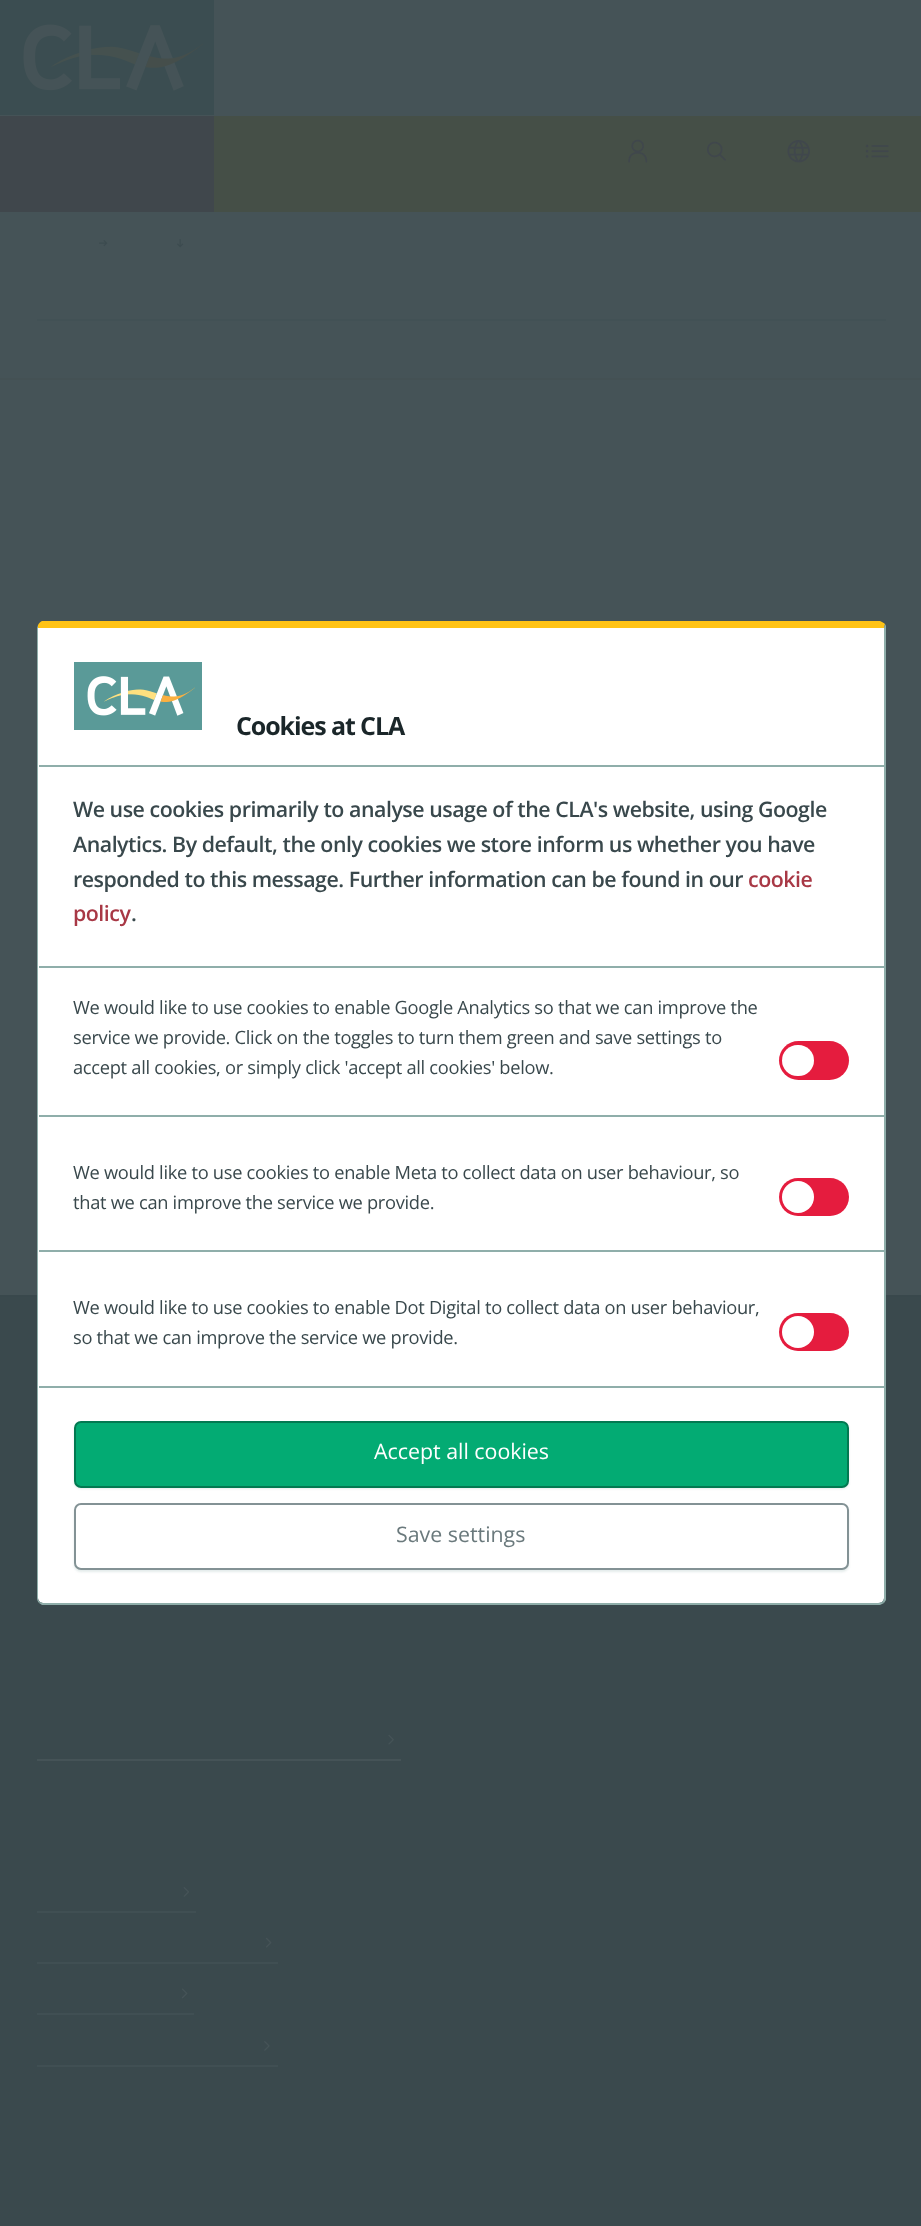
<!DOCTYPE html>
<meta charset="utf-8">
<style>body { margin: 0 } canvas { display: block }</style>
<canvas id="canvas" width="921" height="2226"></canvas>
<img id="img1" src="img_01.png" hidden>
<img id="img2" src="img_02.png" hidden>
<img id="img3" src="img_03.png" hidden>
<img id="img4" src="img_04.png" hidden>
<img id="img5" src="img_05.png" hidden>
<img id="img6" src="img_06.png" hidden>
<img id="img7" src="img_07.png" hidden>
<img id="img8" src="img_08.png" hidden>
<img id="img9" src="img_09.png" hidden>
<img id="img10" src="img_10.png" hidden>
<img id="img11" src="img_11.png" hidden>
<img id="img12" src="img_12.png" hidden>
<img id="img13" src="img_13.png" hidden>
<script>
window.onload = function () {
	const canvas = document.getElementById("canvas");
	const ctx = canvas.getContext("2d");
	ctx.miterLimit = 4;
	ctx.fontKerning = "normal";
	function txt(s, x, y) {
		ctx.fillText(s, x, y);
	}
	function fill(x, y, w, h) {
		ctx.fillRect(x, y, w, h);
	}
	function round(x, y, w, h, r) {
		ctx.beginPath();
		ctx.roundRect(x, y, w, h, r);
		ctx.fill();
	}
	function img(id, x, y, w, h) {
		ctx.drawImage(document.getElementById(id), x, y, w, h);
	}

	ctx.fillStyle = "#455357";
	fill(0, 0, 921, 2226);
	img("img1", 0, 0, 214, 115);
	ctx.fillStyle = "#454F47";
	fill(214, 116, 707, 96);
	ctx.fillStyle = "#40474C";
	fill(0, 116, 214, 96);
	img("img2", 628, 139, 20, 24);
	img("img3", 707, 141, 19, 20);
	img("img4", 787, 140, 23, 23);
	img("img5", 865, 144, 24, 14);
	ctx.fillStyle = "#445154";
	fill(0, 378, 921, 2);
	img("img6", 99, 240, 9, 7);
	img("img7", 177, 239, 7, 9);
	ctx.fillStyle = "#425155";
	fill(37, 319, 849, 2);
	ctx.fillStyle = "#3A494D";
	fill(0, 1297, 921, 929);
	ctx.fillStyle = "#39484C";
	fill(0, 1295, 921, 2);
	ctx.fillStyle = "#FFFFFF";
	ctx.beginPath();
	ctx.moveTo(44, 628);
	ctx.lineTo(884, 628);
	ctx.lineTo(884, 1598);
	ctx.bezierCurveTo(884, 1601, 881, 1603, 878, 1603);
	ctx.lineTo(44, 1603);
	ctx.bezierCurveTo(41, 1603, 38, 1601, 38, 1598);
	ctx.lineTo(38, 628);
	ctx.closePath();
	ctx.fill();
	ctx.fillStyle = "#FFC316";
	ctx.beginPath();
	ctx.moveTo(38, 625);
	ctx.bezierCurveTo(39, 623, 40, 622, 42, 621);
	ctx.lineTo(880, 621);
	ctx.bezierCurveTo(882, 622, 884, 623, 885, 624);
	ctx.lineTo(884, 628);
	ctx.lineTo(38, 628);
	ctx.closePath();
	ctx.fill();
	ctx.fillStyle = "#8FAEAA";
	ctx.beginPath();
	ctx.moveTo(886, 1600);
	ctx.lineTo(884, 1603);
	ctx.lineTo(882, 1602);
	ctx.bezierCurveTo(883, 1601, 884, 1599, 884, 1598);
	ctx.lineTo(884, 628);
	ctx.lineTo(885, 624);
	ctx.lineTo(886, 626);
	ctx.closePath();
	ctx.fill();
	ctx.beginPath();
	ctx.moveTo(42, 1605);
	ctx.lineTo(39, 1603);
	ctx.lineTo(40, 1602);
	ctx.lineTo(43, 1603);
	ctx.lineTo(878, 1603);
	ctx.bezierCurveTo(880, 1603, 881, 1602, 882, 1602);
	ctx.lineTo(884, 1603);
	ctx.lineTo(880, 1605);
	ctx.closePath();
	ctx.fill();
	ctx.beginPath();
	ctx.moveTo(39, 1603);
	ctx.bezierCurveTo(38, 1602, 37, 1600, 37, 1598);
	ctx.lineTo(37, 628);
	ctx.lineTo(38, 625);
	ctx.lineTo(38, 628);
	ctx.lineTo(38, 1598);
	ctx.bezierCurveTo(38, 1600, 39, 1601, 40, 1602);
	ctx.closePath();
	ctx.fill();
	img("img8", 74, 662, 128, 68);
	fill(39, 765, 845, 2);
	fill(39, 966, 845, 2);
	ctx.fillStyle = "#E51C3E";
	round(779, 1041, 70, 39, 19.5);
	ctx.fillStyle = "#FFFFFF";
	round(782, 1045, 32, 31, 15.5);
	ctx.fillStyle = "#8FAEAA";
	fill(39, 1115, 845, 2);
	ctx.fillStyle = "#E51C3E";
	round(779, 1178, 70, 38, 19);
	ctx.fillStyle = "#FFFFFF";
	ctx.beginPath();
	ctx.arc(798, 1197, 16, 0, Math.PI * 2);
	ctx.fill();
	ctx.fillStyle = "#8FAEAA";
	fill(39, 1250, 845, 2);
	ctx.fillStyle = "#E51C3E";
	round(779, 1313, 70, 38, 19);
	ctx.fillStyle = "#FFFFFF";
	ctx.beginPath();
	ctx.arc(798, 1332, 16, 0, Math.PI * 2);
	ctx.fill();
	ctx.fillStyle = "#8FAEAA";
	fill(39, 1386, 845, 2);
	ctx.fillStyle = "rgba(143, 174, 170, 0.24)";
	ctx.filter = "blur(1px)";
	ctx.beginPath();
	ctx.roundRect(74, 1423, 775, 66, 7);
	ctx.fill();
	ctx.filter = "none";
	ctx.fillStyle = "#03AB73";
	ctx.beginPath();
	ctx.roundRect(75, 1422, 773, 65, 6);
	ctx.fill();
	ctx.strokeStyle = "#027951";
	ctx.lineWidth = 2;
	ctx.stroke();
	ctx.fillStyle = "rgba(143, 174, 170, 0.24)";
	ctx.filter = "blur(1px)";
	ctx.beginPath();
	ctx.roundRect(74, 1505, 775, 67, 7);
	ctx.fill();
	ctx.filter = "none";
	ctx.fillStyle = "#FFFFFF";
	ctx.beginPath();
	ctx.roundRect(75, 1504, 773, 65, 6);
	ctx.fill();
	ctx.strokeStyle = "#839295";
	ctx.stroke();
	ctx.fillStyle = "#455357";
	fill(37, 1759, 364, 2);
	img("img9", 388, 1734, 6, 11);
	ctx.fillStyle = "#404F53";
	fill(37, 1911, 159, 2);
	img("img10", 183, 1887, 7, 10);
	fill(37, 1962, 241, 2);
	img("img11", 265, 1937, 7, 11);
	fill(37, 2013, 157, 2);
	img("img12", 181, 1988, 7, 11);
	fill(37, 2065, 241, 2);
	img("img13", 264, 2041, 6, 10);
	ctx.letterSpacing = "-1.1px";
	ctx.font = "bold 25px Open Sans";
	ctx.fillStyle = "#1A2629";
	txt("Cookies at CLA", 236, 735);
	ctx.letterSpacing = "-0.47px";
	ctx.font = "600 21.35px Open Sans";
	ctx.fillStyle = "#39484C";
	txt("We use cookies primarily to analyse usage of the CLA's website, using Google", 73, 817);
	txt("Analytics. By default, the only cookies we store inform us whether you have", 73, 852);
	txt("responded to this message. Further information can be found in our", 73, 887);
	ctx.fillStyle = "#A83845";
	txt("cookie", 748, 887);
	txt("policy", 73, 921);
	ctx.fillStyle = "#39484C";
	txt(".", 131, 921);
	ctx.letterSpacing = "-0.3px";
	ctx.font = "18.3px Open Sans";
	txt("We would like to use cookies to enable Google Analytics so that we can improve the", 73, 1014);
	txt("service we provide. Click on the toggles to turn them green and save settings to", 73, 1044);
	txt("accept all cookies, or simply click 'accept all cookies' below.", 73, 1074);
	txt("We would like to use cookies to enable Meta to collect data on user behaviour, so", 73, 1179);
	txt("that we can improve the service we provide.", 73, 1209);
	txt("We would like to use cookies to enable Dot Digital to collect data on user behaviour,", 73, 1314);
	txt("so that we can improve the service we provide.", 73, 1344);
	ctx.letterSpacing = "0px";
	ctx.font = "21.35px Open Sans";
	ctx.fillStyle = "#FFFFFF";
	txt("Accept all cookies", 374, 1459);
	ctx.fillStyle = "#6A797C";
	txt("Save settings", 396, 1542);
};
</script>
